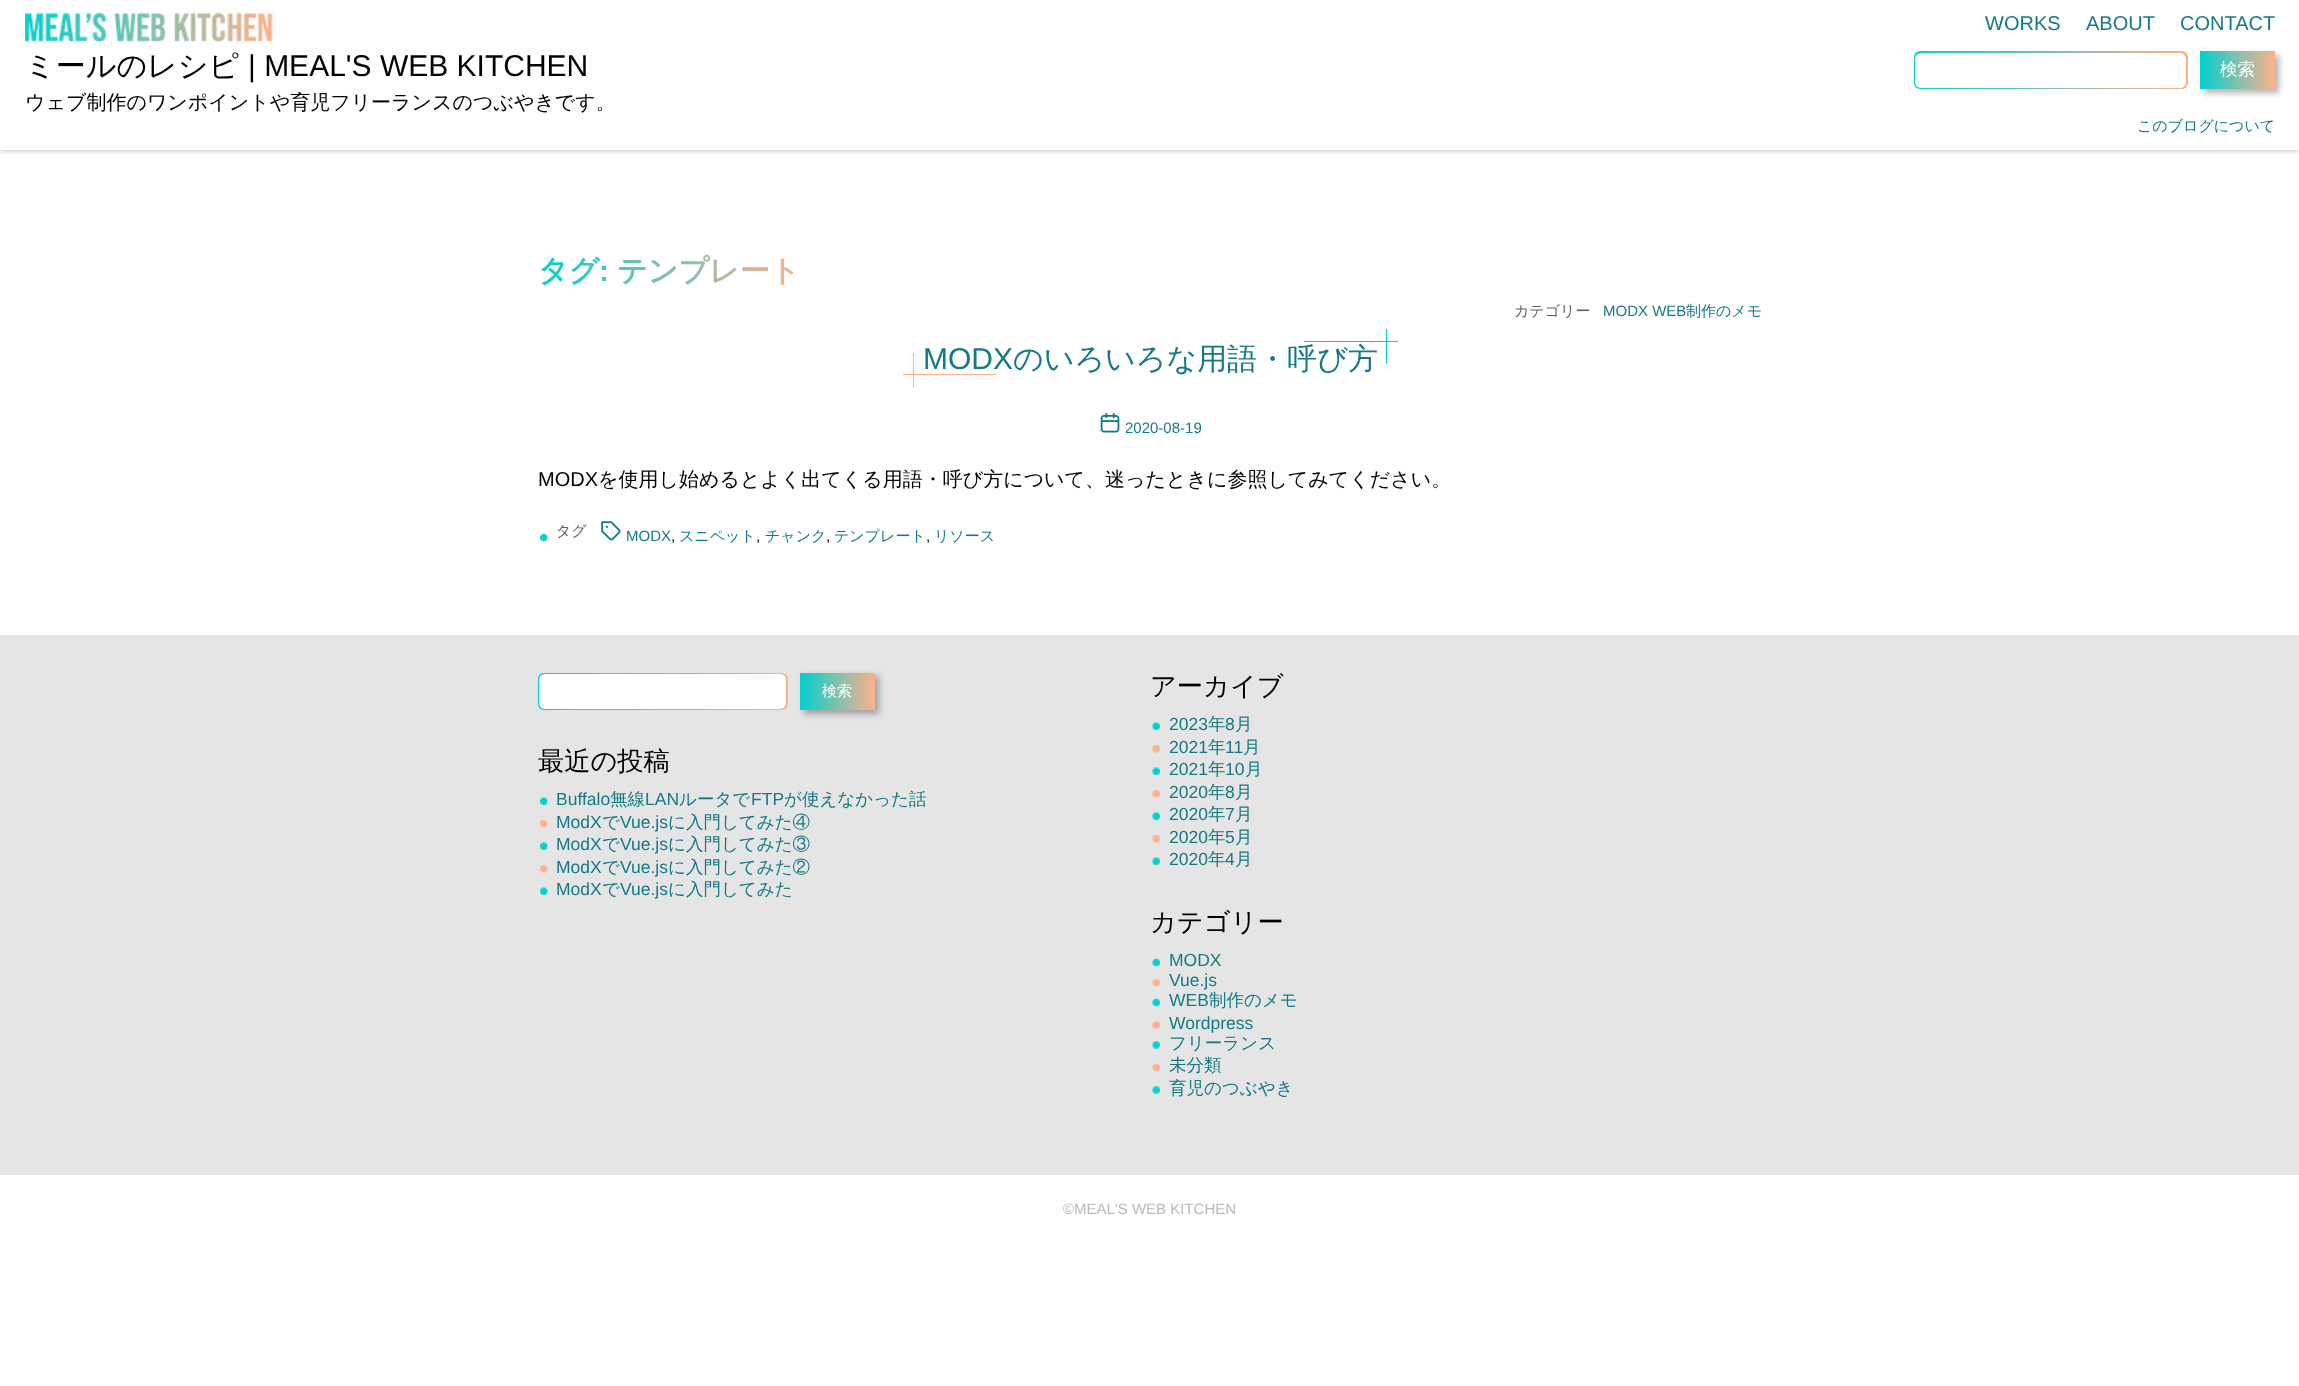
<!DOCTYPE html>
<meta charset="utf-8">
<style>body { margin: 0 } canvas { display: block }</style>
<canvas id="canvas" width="2299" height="1386"></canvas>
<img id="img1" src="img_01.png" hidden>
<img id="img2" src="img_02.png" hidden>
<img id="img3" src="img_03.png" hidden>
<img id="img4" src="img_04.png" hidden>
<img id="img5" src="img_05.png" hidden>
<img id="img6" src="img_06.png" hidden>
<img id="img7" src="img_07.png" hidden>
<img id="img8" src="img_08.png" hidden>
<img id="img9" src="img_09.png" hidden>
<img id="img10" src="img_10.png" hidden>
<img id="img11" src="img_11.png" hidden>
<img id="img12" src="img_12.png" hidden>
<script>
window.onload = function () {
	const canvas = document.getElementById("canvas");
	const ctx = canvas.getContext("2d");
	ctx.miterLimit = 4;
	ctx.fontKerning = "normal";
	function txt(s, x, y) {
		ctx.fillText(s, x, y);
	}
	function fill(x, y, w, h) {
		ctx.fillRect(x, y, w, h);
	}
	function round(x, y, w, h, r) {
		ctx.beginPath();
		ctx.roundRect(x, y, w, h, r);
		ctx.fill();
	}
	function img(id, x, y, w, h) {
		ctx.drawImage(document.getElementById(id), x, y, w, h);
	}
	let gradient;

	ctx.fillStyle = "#FFFFFF";
	fill(0, 0, 2299, 1386);
	ctx.save();
	ctx.beginPath();
	ctx.rect(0, 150, 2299, 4);
	ctx.clip();
	ctx.fillStyle = "rgba(0, 0, 0, 0.3)";
	ctx.filter = "blur(3px)";
	ctx.beginPath();
	ctx.rect(0, 0, 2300, 150);
	ctx.fill();
	ctx.filter = "none";
	ctx.restore();
	img("img1", 25, 12, 248, 30);
	gradient = ctx.createLinearGradient(1914, 70, 2188, 70);
	gradient.addColorStop(0, "#02D0CF");
	gradient.addColorStop(1, "#FEB18B");
	ctx.fillStyle = gradient;
	round(1914, 51, 274, 38, 6);
	ctx.fillStyle = "#FFFFFF";
	round(1915, 53, 271, 35, 6);
	ctx.fillStyle = "rgba(0, 0, 0, 0.3)";
	ctx.filter = "blur(3px)";
	ctx.beginPath();
	ctx.rect(2204, 55, 75, 38);
	ctx.fill();
	ctx.filter = "none";
	gradient = ctx.createLinearGradient(2200, 70, 2275, 70);
	gradient.addColorStop(0, "#02D0CF");
	gradient.addColorStop(1, "#FEB18B");
	ctx.fillStyle = gradient;
	fill(2200, 51, 75, 38);
	ctx.fillStyle = "#02D0CF";
	fill(1304, 341, 94, 1);
	ctx.fillStyle = "#FEB18B";
	fill(913, 353, 1, 35);
	ctx.fillStyle = "#02D0CF";
	fill(1386, 329, 1, 35);
	ctx.fillStyle = "#FEB18B";
	fill(903, 374, 93, 1);
	img("img2", 1100, 413, 20, 20);
	img("img3", 540, 533, 8, 9);
	img("img4", 601, 521, 20, 20);
	ctx.fillStyle = "#E5E5E5";
	fill(0, 635, 2299, 540);
	gradient = ctx.createLinearGradient(538, 691, 788, 691);
	gradient.addColorStop(0, "#02D0CF");
	gradient.addColorStop(1, "#FEB18B");
	ctx.fillStyle = gradient;
	round(538, 673, 250, 37, 6);
	ctx.fillStyle = "#FFFFFF";
	round(539, 674, 247, 35, 6);
	ctx.fillStyle = "rgba(0, 0, 0, 0.3)";
	ctx.filter = "blur(3px)";
	ctx.beginPath();
	ctx.rect(804, 676, 75, 38);
	ctx.fill();
	ctx.filter = "none";
	gradient = ctx.createLinearGradient(800, 691, 875, 691);
	gradient.addColorStop(0, "#02D0CF");
	gradient.addColorStop(1, "#FEB18B");
	ctx.fillStyle = gradient;
	fill(800, 673, 75, 37);
	img("img5", 540, 797, 8, 8);
	img("img6", 540, 820, 8, 8);
	img("img5", 540, 842, 8, 8);
	img("img6", 540, 865, 8, 8);
	img("img5", 540, 887, 8, 8);
	img("img7", 1152, 722, 8, 8);
	img("img8", 1152, 745, 8, 8);
	img("img7", 1152, 767, 8, 8);
	img("img8", 1152, 790, 8, 8);
	img("img7", 1152, 812, 8, 8);
	img("img8", 1152, 835, 8, 8);
	img("img7", 1152, 857, 8, 8);
	img("img9", 1152, 958, 8, 9);
	img("img10", 1152, 978, 8, 9);
	img("img9", 1152, 998, 8, 9);
	img("img11", 1152, 1021, 8, 8);
	img("img12", 1152, 1041, 8, 8);
	img("img10", 1152, 1063, 8, 9);
	img("img12", 1152, 1086, 8, 8);
	ctx.font = "20px Liberation Sans";
	ctx.fillStyle = "#147985";
	txt("WORKS", 1985, 30);
	txt("ABOUT", 2086, 30);
	txt("CONTACT", 2180, 30);
	ctx.font = "500 30px WenQuanYi Zen Hei";
	ctx.fillStyle = "#000000";
	txt("ミールのレシピ", 25, 76);
	ctx.font = "30px Liberation Sans";
	txt("| MEAL'S WEB KITCHEN", 248, 76);
	ctx.font = "500 20px WenQuanYi Zen Hei";
	txt("ウェブ制作のワンポイントや育児フリーランスのつぶやきです。", 25, 109);
	ctx.font = "500 17.5px WenQuanYi Zen Hei";
	ctx.fillStyle = "#FFFFFF";
	txt("検索", 2220, 75);
	ctx.font = "500 15px WenQuanYi Zen Hei";
	ctx.fillStyle = "#147985";
	txt("このブログについて", 2137, 131);
	ctx.font = "bold 30px WenQuanYi Zen Hei";
	gradient = ctx.createLinearGradient(538, 271, 801, 271);
	gradient.addColorStop(0, "#02D0CF");
	gradient.addColorStop(1, "#FEB18B");
	ctx.fillStyle = gradient;
	txt("タグ", 538, 281);
	ctx.font = "bold 30px Liberation Sans";
	txt(":", 599, 281);
	ctx.font = "bold 30px WenQuanYi Zen Hei";
	txt("テンプレート", 617, 281);
	ctx.font = "500 15px WenQuanYi Zen Hei";
	ctx.fillStyle = "#5E5E5E";
	txt("カテゴリー", 1514, 316);
	ctx.font = "15px Liberation Sans";
	ctx.fillStyle = "#147985";
	txt("MODX WEB", 1603, 316);
	ctx.font = "500 15px WenQuanYi Zen Hei";
	txt("制作のメモ", 1686, 316);
	ctx.font = "30px Liberation Sans";
	txt("MODX", 923, 369);
	ctx.font = "500 30px WenQuanYi Zen Hei";
	txt("のいろいろな用語・呼び方", 1013, 369);
	ctx.font = "15px Liberation Sans";
	txt("2020-08-19", 1125, 433);
	ctx.font = "20px Liberation Sans";
	ctx.fillStyle = "#000000";
	txt("MODX", 538, 486);
	ctx.font = "500 20px WenQuanYi Zen Hei";
	txt("を使用し始めるとよく出てくる用語・呼び方について、迷ったときに参照してみてください。", 598, 486);
	ctx.font = "500 15px WenQuanYi Zen Hei";
	ctx.fillStyle = "#5E5E5E";
	txt("タグ", 556, 536);
	ctx.font = "15px Liberation Sans";
	ctx.fillStyle = "#147985";
	txt("MODX", 626, 541);
	ctx.fillStyle = "#000000";
	txt(",", 671, 541);
	ctx.font = "500 15px WenQuanYi Zen Hei";
	ctx.fillStyle = "#147985";
	txt("スニペット", 679, 541);
	ctx.font = "15px Liberation Sans";
	ctx.fillStyle = "#000000";
	txt(",", 756, 541);
	ctx.font = "500 15px WenQuanYi Zen Hei";
	ctx.fillStyle = "#147985";
	txt("チャンク", 765, 541);
	ctx.font = "15px Liberation Sans";
	ctx.fillStyle = "#000000";
	txt(",", 826, 541);
	ctx.font = "500 15px WenQuanYi Zen Hei";
	ctx.fillStyle = "#147985";
	txt("テンプレート", 834, 541);
	ctx.font = "15px Liberation Sans";
	ctx.fillStyle = "#000000";
	txt(",", 926, 541);
	ctx.font = "500 15px WenQuanYi Zen Hei";
	ctx.fillStyle = "#147985";
	txt("リソース", 934, 541);
	ctx.fillStyle = "#FFFFFF";
	txt("検索", 822, 696);
	ctx.font = "500 26.25px WenQuanYi Zen Hei";
	ctx.fillStyle = "#000000";
	txt("最近の投稿", 538, 770);
	ctx.font = "17.5px Liberation Sans";
	ctx.fillStyle = "#147985";
	txt("Buffalo", 556, 805);
	ctx.font = "500 17.5px WenQuanYi Zen Hei";
	txt("無線", 610, 805);
	ctx.font = "17.5px Liberation Sans";
	txt("LAN", 645, 805);
	ctx.font = "500 17.5px WenQuanYi Zen Hei";
	txt("ルータで", 679, 805);
	ctx.font = "17.5px Liberation Sans";
	txt("FTP", 751, 805);
	ctx.font = "500 17.5px WenQuanYi Zen Hei";
	txt("が使えなかった話", 784, 805);
	ctx.font = "17.5px Liberation Sans";
	txt("ModX", 556, 828);
	ctx.font = "500 17.5px WenQuanYi Zen Hei";
	txt("で", 602, 828);
	ctx.font = "17.5px Liberation Sans";
	txt("Vue.js", 620, 828);
	ctx.font = "500 17.5px WenQuanYi Zen Hei";
	txt("に入門してみた④", 668, 828);
	ctx.font = "17.5px Liberation Sans";
	txt("ModX", 556, 850);
	ctx.font = "500 17.5px WenQuanYi Zen Hei";
	txt("で", 602, 850);
	ctx.font = "17.5px Liberation Sans";
	txt("Vue.js", 620, 850);
	ctx.font = "500 17.5px WenQuanYi Zen Hei";
	txt("に入門してみた③", 668, 850);
	ctx.font = "17.5px Liberation Sans";
	txt("ModX", 556, 873);
	ctx.font = "500 17.5px WenQuanYi Zen Hei";
	txt("で", 602, 873);
	ctx.font = "17.5px Liberation Sans";
	txt("Vue.js", 620, 873);
	ctx.font = "500 17.5px WenQuanYi Zen Hei";
	txt("に入門してみた②", 668, 873);
	ctx.font = "17.5px Liberation Sans";
	txt("ModX", 556, 895);
	ctx.font = "500 17.5px WenQuanYi Zen Hei";
	txt("で", 602, 895);
	ctx.font = "17.5px Liberation Sans";
	txt("Vue.js", 620, 895);
	ctx.font = "500 17.5px WenQuanYi Zen Hei";
	txt("に入門してみた", 668, 895);
	ctx.font = "500 26.25px WenQuanYi Zen Hei";
	ctx.fillStyle = "#000000";
	txt("アーカイブ", 1150, 695);
	ctx.font = "17.5px Liberation Sans";
	ctx.fillStyle = "#147985";
	txt("2023", 1169, 730);
	ctx.font = "500 17.5px WenQuanYi Zen Hei";
	txt("年", 1208, 730);
	ctx.font = "17.5px Liberation Sans";
	txt("8", 1225, 730);
	ctx.font = "500 17.5px WenQuanYi Zen Hei";
	txt("月", 1235, 730);
	ctx.font = "17.5px Liberation Sans";
	txt("2021", 1169, 753);
	ctx.font = "500 17.5px WenQuanYi Zen Hei";
	txt("年", 1208, 753);
	ctx.font = "17.5px Liberation Sans";
	txt("11", 1225, 753);
	ctx.font = "500 17.5px WenQuanYi Zen Hei";
	txt("月", 1243, 753);
	ctx.font = "17.5px Liberation Sans";
	txt("2021", 1169, 775);
	ctx.font = "500 17.5px WenQuanYi Zen Hei";
	txt("年", 1208, 775);
	ctx.font = "17.5px Liberation Sans";
	txt("10", 1225, 775);
	ctx.font = "500 17.5px WenQuanYi Zen Hei";
	txt("月", 1245, 775);
	ctx.font = "17.5px Liberation Sans";
	txt("2020", 1169, 798);
	ctx.font = "500 17.5px WenQuanYi Zen Hei";
	txt("年", 1208, 798);
	ctx.font = "17.5px Liberation Sans";
	txt("8", 1225, 798);
	ctx.font = "500 17.5px WenQuanYi Zen Hei";
	txt("月", 1235, 798);
	ctx.font = "17.5px Liberation Sans";
	txt("2020", 1169, 820);
	ctx.font = "500 17.5px WenQuanYi Zen Hei";
	txt("年", 1208, 820);
	ctx.font = "17.5px Liberation Sans";
	txt("7", 1225, 820);
	ctx.font = "500 17.5px WenQuanYi Zen Hei";
	txt("月", 1235, 820);
	ctx.font = "17.5px Liberation Sans";
	txt("2020", 1169, 843);
	ctx.font = "500 17.5px WenQuanYi Zen Hei";
	txt("年", 1208, 843);
	ctx.font = "17.5px Liberation Sans";
	txt("5", 1225, 843);
	ctx.font = "500 17.5px WenQuanYi Zen Hei";
	txt("月", 1235, 843);
	ctx.font = "17.5px Liberation Sans";
	txt("2020", 1169, 865);
	ctx.font = "500 17.5px WenQuanYi Zen Hei";
	txt("年", 1208, 865);
	ctx.font = "17.5px Liberation Sans";
	txt("4", 1225, 865);
	ctx.font = "500 17.5px WenQuanYi Zen Hei";
	txt("月", 1235, 865);
	ctx.font = "500 26.25px WenQuanYi Zen Hei";
	ctx.fillStyle = "#000000";
	txt("カテゴリー", 1150, 931);
	ctx.font = "17.5px Liberation Sans";
	ctx.fillStyle = "#147985";
	txt("MODX", 1169, 966);
	txt("Vue.js", 1169, 986);
	txt("WEB", 1169, 1006);
	ctx.font = "500 17.5px WenQuanYi Zen Hei";
	txt("制作のメモ", 1209, 1006);
	ctx.font = "17.5px Liberation Sans";
	txt("Wordpress", 1169, 1029);
	ctx.font = "500 17.5px WenQuanYi Zen Hei";
	txt("フリーランス", 1169, 1049);
	txt("未分類", 1169, 1071);
	txt("育児のつぶやき", 1169, 1094);
	ctx.font = "15px Liberation Sans";
	ctx.fillStyle = "#B9B9B9";
	txt("©MEAL'S WEB KITCHEN", 1063, 1214);
};
</script>
